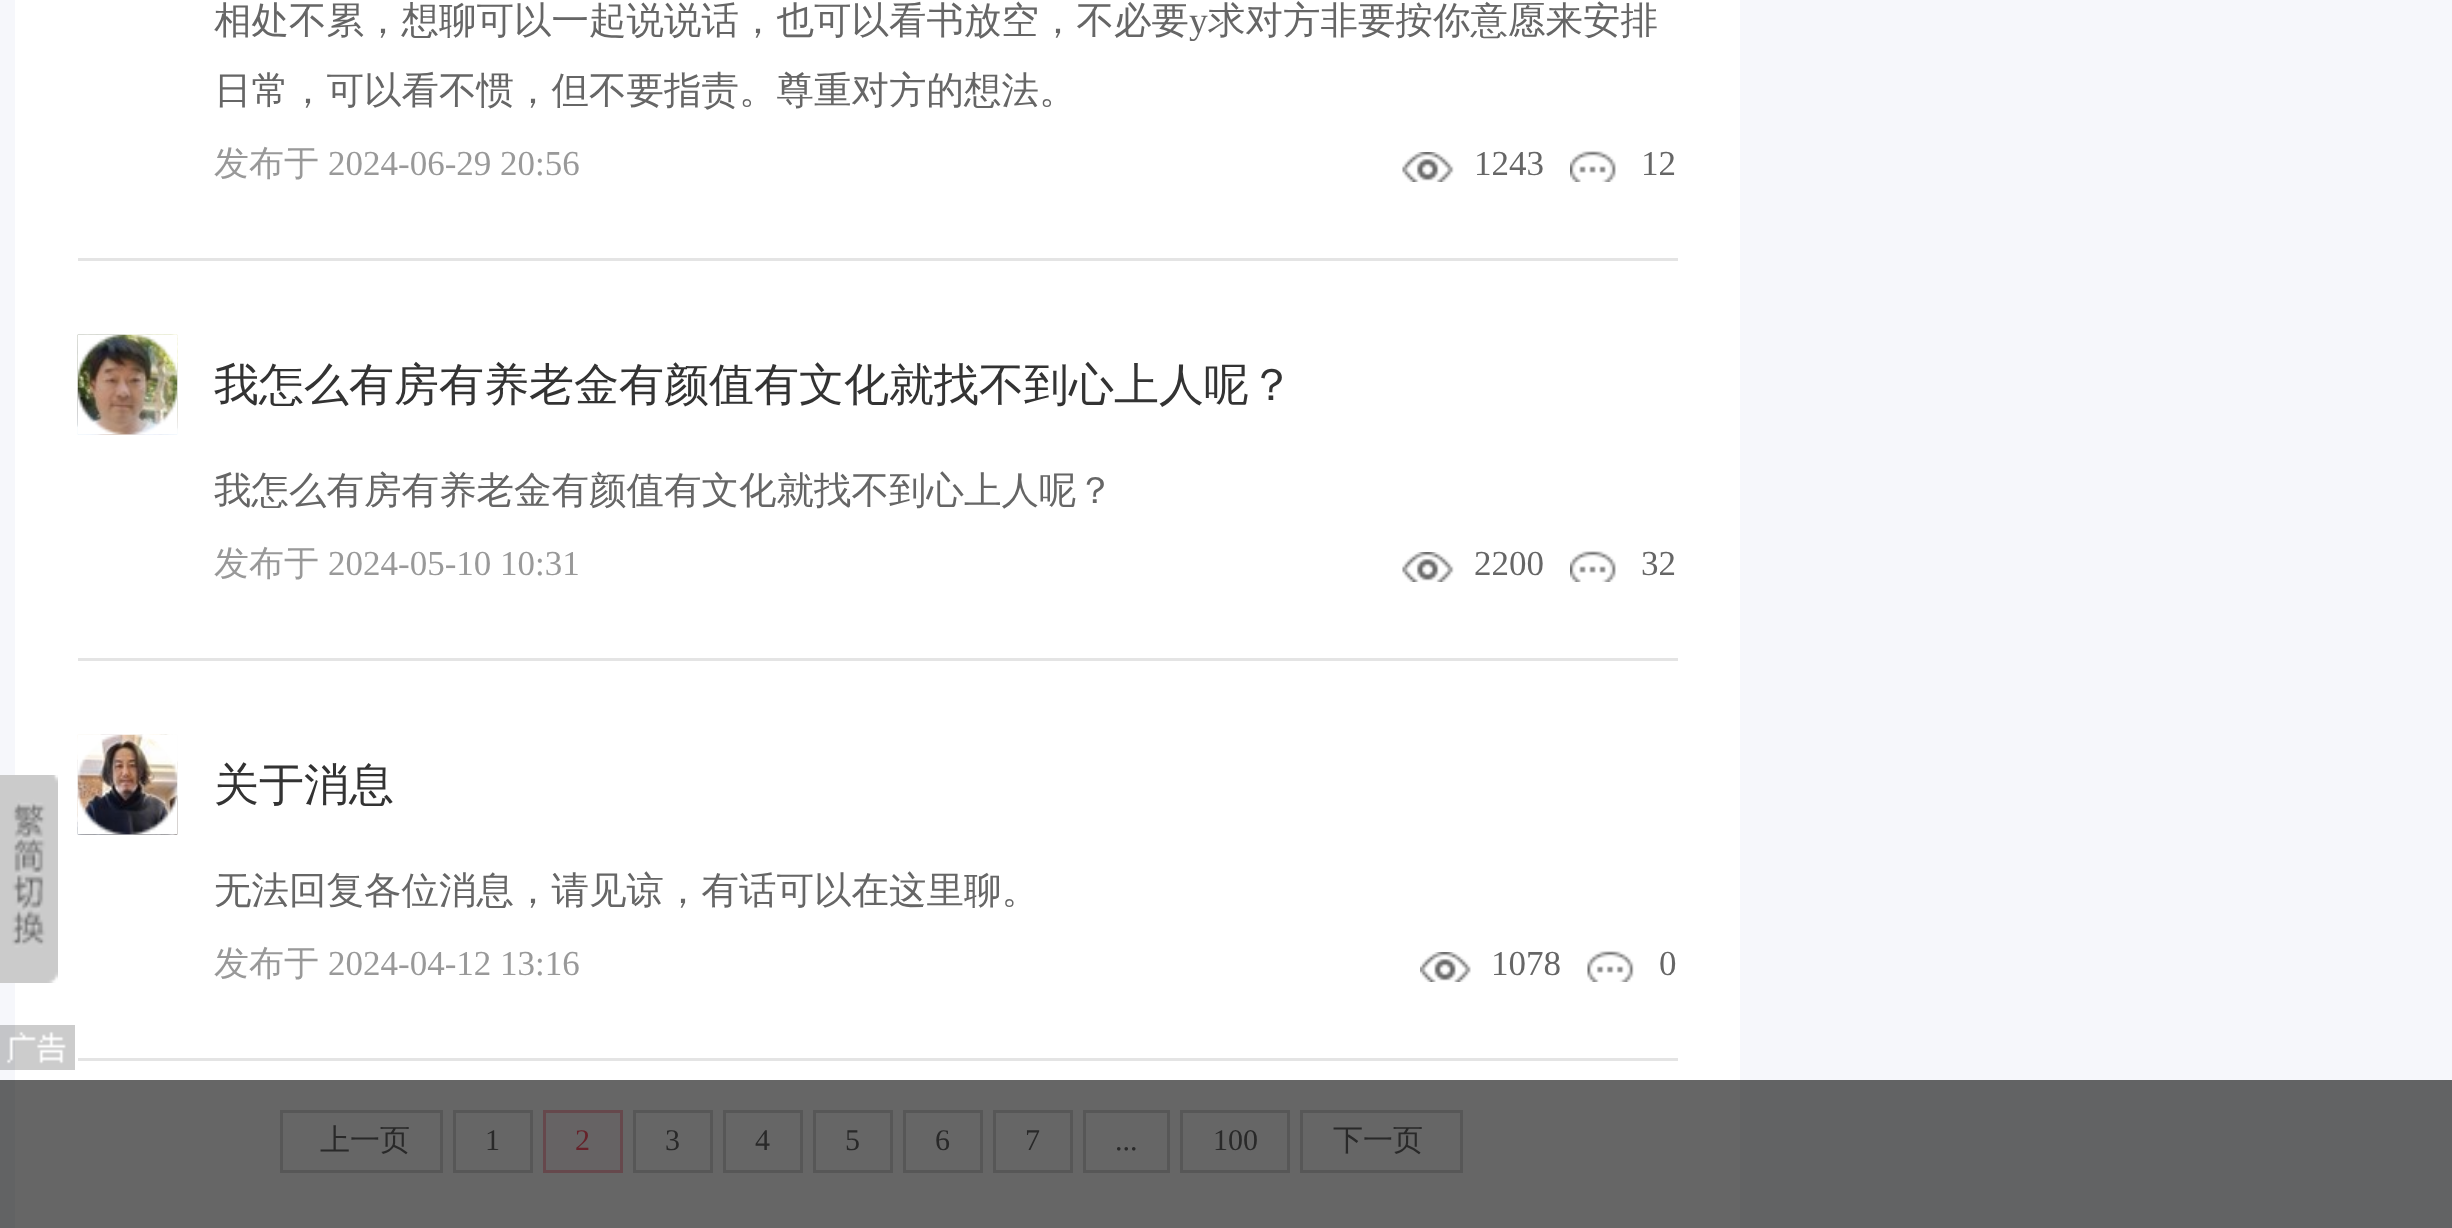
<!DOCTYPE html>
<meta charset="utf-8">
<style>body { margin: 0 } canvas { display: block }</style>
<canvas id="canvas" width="2452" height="1228"></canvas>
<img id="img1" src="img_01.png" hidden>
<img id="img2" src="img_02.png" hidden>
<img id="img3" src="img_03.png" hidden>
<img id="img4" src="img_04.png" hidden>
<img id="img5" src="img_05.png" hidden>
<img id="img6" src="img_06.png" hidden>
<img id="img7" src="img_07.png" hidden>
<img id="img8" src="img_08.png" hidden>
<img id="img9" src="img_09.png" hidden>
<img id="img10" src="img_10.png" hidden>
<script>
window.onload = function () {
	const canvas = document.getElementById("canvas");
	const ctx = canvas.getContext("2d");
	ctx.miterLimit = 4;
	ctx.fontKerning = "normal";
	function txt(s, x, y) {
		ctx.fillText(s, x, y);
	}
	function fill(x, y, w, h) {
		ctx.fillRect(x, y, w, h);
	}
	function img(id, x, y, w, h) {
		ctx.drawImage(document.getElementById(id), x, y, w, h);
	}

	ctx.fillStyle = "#F6F7FB";
	fill(0, 0, 2452, 1228);
	ctx.fillStyle = "#626364";
	fill(0, 1080, 2452, 148);
	ctx.fillStyle = "#FFFFFF";
	fill(15, 0, 1725, 1080);
	img("img1", 0, 775, 58, 208);
	img("img2", 0, 1025, 75, 45);
	ctx.fillStyle = "#666666";
	fill(15, 1080, 1725, 148);
	ctx.fillStyle = "#E4E4E4";
	fill(78, 258, 1600, 3);
	img("img3", 1402, 152, 52, 30);
	img("img4", 1570, 151, 46, 31);
	fill(78, 658, 1600, 3);
	img("img5", 77, 334, 101, 101);
	img("img6", 77, 334, 101, 101);
	img("img3", 1402, 552, 52, 30);
	img("img4", 1570, 551, 46, 31);
	fill(78, 1058, 1600, 3);
	img("img7", 77, 734, 101, 101);
	img("img8", 77, 734, 101, 101);
	img("img9", 1420, 952, 51, 30);
	img("img10", 1587, 951, 47, 31);
	ctx.strokeStyle = "#575757";
	ctx.lineWidth = 3;
	ctx.strokeRect(281.5, 1111.5, 160, 60);
	ctx.strokeRect(454.5, 1111.5, 77, 60);
	ctx.fillStyle = "#666364";
	ctx.beginPath();
	ctx.rect(544.5, 1111.5, 77, 60);
	ctx.fill();
	ctx.strokeStyle = "#66484C";
	ctx.stroke();
	ctx.strokeStyle = "#575757";
	ctx.strokeRect(634.5, 1111.5, 77, 60);
	ctx.strokeRect(724.5, 1111.5, 77, 60);
	ctx.strokeRect(814.5, 1111.5, 77, 60);
	ctx.strokeRect(904.5, 1111.5, 77, 60);
	ctx.strokeRect(994.5, 1111.5, 77, 60);
	ctx.strokeRect(1084.5, 1111.5, 84, 60);
	ctx.strokeRect(1181.5, 1111.5, 107, 60);
	ctx.strokeRect(1301.5, 1111.5, 160, 60);
	ctx.font = "500 37.5px WenQuanYi Zen Hei";
	ctx.fillStyle = "#666666";
	txt("相处不累，想聊可以一起说说话，也可以看书放空，不必要", 214, 33);
	ctx.font = "37.5px Liberation Serif";
	txt("y", 1189, 33);
	ctx.font = "500 37.5px WenQuanYi Zen Hei";
	txt("求对方非要按你意愿来安排", 1208, 33);
	txt("日常，可以看不惯，但不要指责。尊重对方的想法。", 214, 103);
	ctx.font = "500 35px WenQuanYi Zen Hei";
	ctx.fillStyle = "#999999";
	txt("发布于", 214, 175);
	ctx.font = "35px Liberation Serif";
	txt("2024-06-29 20:56", 328, 175);
	ctx.fillStyle = "#666666";
	txt("1243", 1474, 175);
	txt("12", 1641, 175);
	ctx.font = "500 45px WenQuanYi Zen Hei";
	ctx.fillStyle = "#333333";
	txt("我怎么有房有养老金有颜值有文化就找不到心上人呢？", 214, 400);
	ctx.font = "500 37.5px WenQuanYi Zen Hei";
	ctx.fillStyle = "#666666";
	txt("我怎么有房有养老金有颜值有文化就找不到心上人呢？", 214, 503);
	ctx.font = "500 35px WenQuanYi Zen Hei";
	ctx.fillStyle = "#999999";
	txt("发布于", 214, 575);
	ctx.font = "35px Liberation Serif";
	txt("2024-05-10 10:31", 328, 575);
	ctx.fillStyle = "#666666";
	txt("2200", 1474, 575);
	txt("32", 1641, 575);
	ctx.font = "500 45px WenQuanYi Zen Hei";
	ctx.fillStyle = "#333333";
	txt("关于消息", 214, 800);
	ctx.font = "500 37.5px WenQuanYi Zen Hei";
	ctx.fillStyle = "#666666";
	txt("无法回复各位消息，请见谅，有话可以在这里聊。", 214, 903);
	ctx.font = "500 35px WenQuanYi Zen Hei";
	ctx.fillStyle = "#999999";
	txt("发布于", 214, 975);
	ctx.font = "35px Liberation Serif";
	txt("2024-04-12 13:16", 328, 975);
	ctx.fillStyle = "#666666";
	txt("1078", 1491, 975);
	txt("0", 1659, 975);
	ctx.font = "500 30px WenQuanYi Zen Hei";
	ctx.fillStyle = "#292929";
	txt("上一页", 320, 1150);
	ctx.font = "30px Liberation Serif";
	txt("1", 485, 1150);
	ctx.fillStyle = "#66222A";
	txt("2", 575, 1150);
	ctx.fillStyle = "#292929";
	txt("3", 665, 1150);
	txt("4", 755, 1150);
	txt("5", 845, 1150);
	txt("6", 935, 1150);
	txt("7", 1025, 1150);
	txt("...", 1115, 1150);
	txt("100", 1213, 1150);
	ctx.font = "500 30px WenQuanYi Zen Hei";
	txt("下一页", 1333, 1150);
};
</script>
